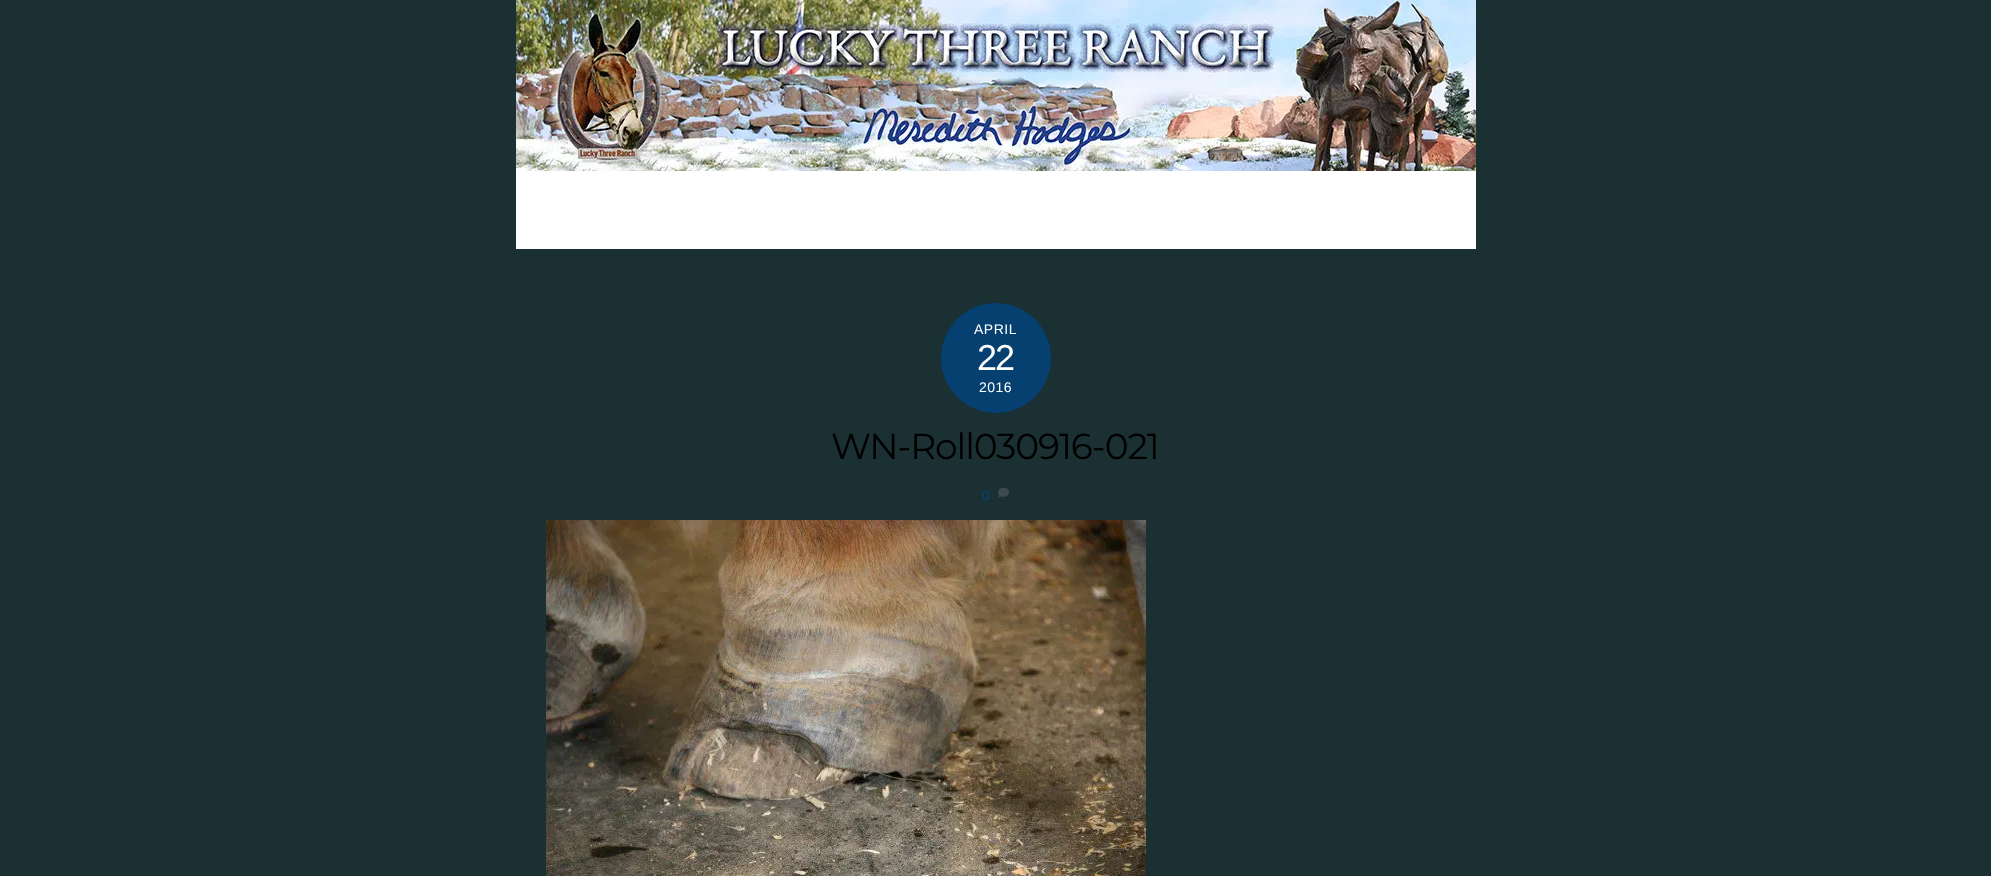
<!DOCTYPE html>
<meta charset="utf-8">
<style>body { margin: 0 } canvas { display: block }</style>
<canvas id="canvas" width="1991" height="876"></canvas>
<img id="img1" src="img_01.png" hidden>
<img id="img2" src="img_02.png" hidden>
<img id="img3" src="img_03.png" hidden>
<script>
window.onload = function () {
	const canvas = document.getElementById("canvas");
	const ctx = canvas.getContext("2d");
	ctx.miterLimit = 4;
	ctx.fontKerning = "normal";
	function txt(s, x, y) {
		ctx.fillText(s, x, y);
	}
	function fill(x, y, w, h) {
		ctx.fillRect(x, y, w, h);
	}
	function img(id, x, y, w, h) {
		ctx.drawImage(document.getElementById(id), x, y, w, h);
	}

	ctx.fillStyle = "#1A3032";
	fill(0, 0, 1991, 876);
	ctx.fillStyle = "#FFFFFF";
	fill(516, 171, 960, 78);
	img("img1", 516, 0, 960, 171);
	ctx.fillStyle = "#054071";
	ctx.beginPath();
	ctx.arc(996, 358, 55, 0, Math.PI * 2);
	ctx.fill();
	img("img2", 998, 487, 11, 11);
	img("img3", 546, 520, 600, 356);
	ctx.letterSpacing = "0.5px";
	ctx.font = "14px Liberation Sans";
	ctx.fillStyle = "#FFFFFF";
	txt("APRIL", 974, 334);
	ctx.letterSpacing = "-2px";
	ctx.font = "36px Liberation Sans";
	txt("22", 977, 370);
	ctx.letterSpacing = "0.5px";
	ctx.font = "14px Liberation Sans";
	txt("2016", 979, 392);
	ctx.letterSpacing = "-1.1px";
	ctx.font = "36px Montserrat";
	ctx.fillStyle = "#000000";
	txt("WN-Roll030916-021", 831, 459);
	ctx.letterSpacing = "0px";
	ctx.font = "14px Liberation Sans";
	ctx.fillStyle = "#00437F";
	txt("0", 982, 500);
};
</script>
